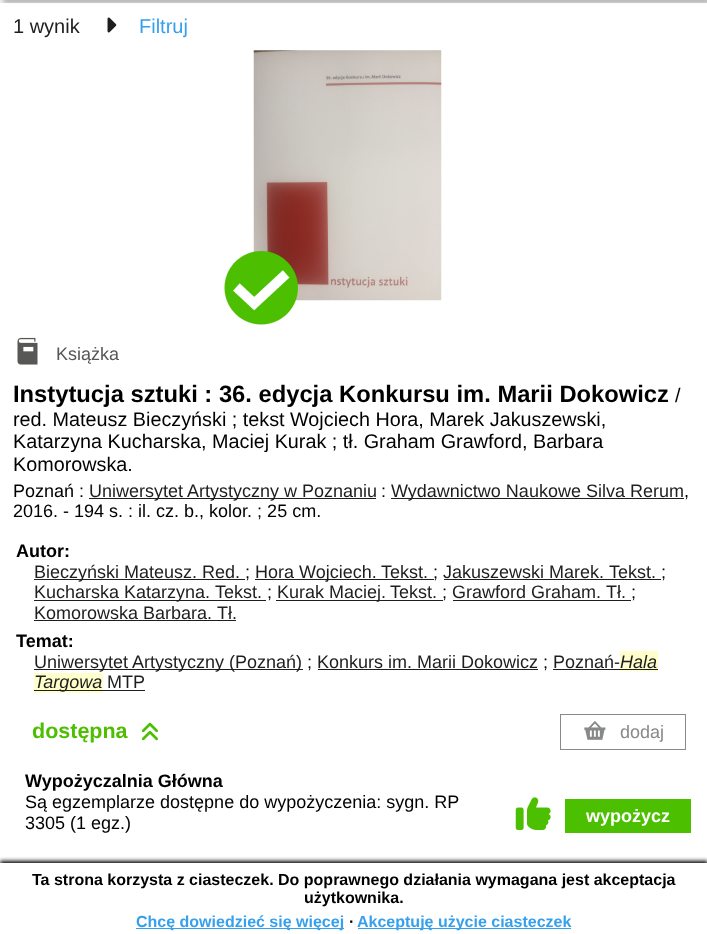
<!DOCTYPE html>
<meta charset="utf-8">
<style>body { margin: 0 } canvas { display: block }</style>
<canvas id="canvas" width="707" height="934"></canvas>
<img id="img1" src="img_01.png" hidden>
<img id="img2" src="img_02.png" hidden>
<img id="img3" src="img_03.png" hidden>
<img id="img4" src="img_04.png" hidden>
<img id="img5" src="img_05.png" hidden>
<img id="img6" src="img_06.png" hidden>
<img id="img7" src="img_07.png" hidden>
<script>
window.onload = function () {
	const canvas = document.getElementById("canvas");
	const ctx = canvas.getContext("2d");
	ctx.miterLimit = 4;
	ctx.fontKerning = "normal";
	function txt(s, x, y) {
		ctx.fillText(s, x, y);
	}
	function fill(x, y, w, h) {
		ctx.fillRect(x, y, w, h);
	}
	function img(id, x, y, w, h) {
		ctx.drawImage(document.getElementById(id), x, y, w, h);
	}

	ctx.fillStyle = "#F5F5F5";
	fill(0, 0, 707, 934);
	ctx.fillStyle = "rgba(0, 0, 0, 0.25)";
	ctx.filter = "blur(2.5px)";
	ctx.beginPath();
	ctx.rect(3, -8, 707, 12);
	ctx.fill();
	ctx.filter = "none";
	ctx.fillStyle = "rgba(255, 255, 255, 0.95)";
	fill(0, 3, 707, 860);
	img("img1", 107, 17, 10, 16);
	img("img2", 253, 50, 189, 251);
	img("img3", 224, 251, 74, 74);
	img("img4", 17, 337, 21, 28);
	ctx.fillStyle = "#1E1E1E";
	fill(89, 498, 287, 1);
	fill(391, 498, 293, 1);
	fill(34, 579, 211, 1);
	fill(255, 579, 179, 1);
	fill(444, 579, 217, 1);
	fill(34, 600, 232, 1);
	fill(276, 600, 167, 1);
	fill(453, 600, 178, 1);
	fill(34, 620, 202, 1);
	fill(34, 669, 269, 1);
	fill(318, 669, 220, 1);
	fill(553, 669, 67, 1);
	ctx.fillStyle = "#FFFFCC";
	fill(620, 651, 38, 20);
	ctx.fillStyle = "#1E1E1E";
	fill(620, 669, 38, 1);
	ctx.fillStyle = "#FFFFCC";
	fill(34, 673, 69, 20);
	ctx.fillStyle = "#1E1E1E";
	fill(34, 690, 111, 1);
	img("img5", 141, 722, 17, 19);
	ctx.strokeStyle = "#888989";
	ctx.strokeRect(560.5, 714.5, 125, 35);
	img("img6", 584, 721, 22, 19);
	img("img7", 515, 797, 36, 33);
	ctx.fillStyle = "#4CBF00";
	fill(565, 799, 126, 34);
	ctx.fillStyle = "#000000";
	ctx.filter = "blur(2px)";
	ctx.beginPath();
	ctx.rect(0, 861, 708, 73);
	ctx.fill();
	ctx.filter = "none";
	ctx.fillStyle = "#FFFFFF";
	fill(0, 863, 707, 71);
	ctx.fillStyle = "#36A0EC";
	fill(136, 928, 208, 1);
	fill(358, 928, 213, 1);
	ctx.font = "20px Liberation Sans";
	ctx.fillStyle = "#1E1E1E";
	txt("1 wynik", 13, 33);
	ctx.fillStyle = "#36A0EC";
	txt("Filtruj", 139, 33);
	ctx.font = "18px Liberation Sans";
	ctx.fillStyle = "#575756";
	txt("Książka", 56, 360);
	ctx.font = "bold 23.75px Liberation Sans";
	ctx.fillStyle = "#000000";
	txt("Instytucja sztuki : 36. edycja Konkursu im. Marii Dokowicz", 13, 402);
	ctx.font = "19.8px Liberation Sans";
	txt("/", 675, 402);
	txt("red. Mateusz Bieczyński ; tekst Wojciech Hora, Marek Jakuszewski,", 13, 426);
	txt("Katarzyna Kucharska, Maciej Kurak ; tł. Graham Grawford, Barbara", 13, 448);
	txt("Komorowska.", 13, 471);
	ctx.font = "18px Liberation Sans";
	txt("Poznań :", 13, 497);
	ctx.fillStyle = "#1E1E1E";
	txt("Uniwersytet Artystyczny w Poznaniu", 89, 497);
	ctx.fillStyle = "#000000";
	txt(":", 381, 497);
	ctx.fillStyle = "#1E1E1E";
	txt("Wydawnictwo Naukowe Silva Rerum", 391, 497);
	ctx.fillStyle = "#000000";
	txt(",", 684, 497);
	txt("2016. - 194 s. : il. cz. b., kolor. ; 25 cm.", 13, 517);
	ctx.font = "bold 18px Liberation Sans";
	txt("Autor:", 16, 557);
	ctx.font = "18px Liberation Sans";
	ctx.fillStyle = "#1E1E1E";
	txt("Bieczyński Mateusz. Red.", 34, 578);
	ctx.fillStyle = "#000000";
	txt(";", 245, 578);
	ctx.fillStyle = "#1E1E1E";
	txt("Hora Wojciech.", 255, 578);
	txt("Tekst.", 381, 578);
	ctx.fillStyle = "#000000";
	txt(";", 433, 578);
	ctx.fillStyle = "#1E1E1E";
	txt("Jakuszewski Marek.", 443, 578);
	txt("Tekst.", 609, 578);
	ctx.fillStyle = "#000000";
	txt(";", 661, 578);
	ctx.fillStyle = "#1E1E1E";
	txt("Kucharska Katarzyna.", 34, 598);
	txt("Tekst.", 215, 598);
	ctx.fillStyle = "#000000";
	txt(";", 267, 598);
	ctx.fillStyle = "#1E1E1E";
	txt("Kurak Maciej.", 277, 598);
	txt("Tekst.", 390, 598);
	ctx.fillStyle = "#000000";
	txt(";", 442, 598);
	ctx.fillStyle = "#1E1E1E";
	txt("Grawford Graham.", 452, 598);
	txt("Tł.", 606, 598);
	ctx.fillStyle = "#000000";
	txt(";", 631, 598);
	ctx.fillStyle = "#1E1E1E";
	txt("Komorowska Barbara.", 34, 619);
	txt("Tł.", 217, 619);
	ctx.font = "bold 18px Liberation Sans";
	ctx.fillStyle = "#000000";
	txt("Temat:", 16, 647);
	ctx.font = "18px Liberation Sans";
	ctx.fillStyle = "#1E1E1E";
	txt("Uniwersytet Artystyczny (Poznań)", 34, 668);
	ctx.fillStyle = "#000000";
	txt(";", 307, 668);
	ctx.fillStyle = "#1E1E1E";
	txt("Konkurs im. Marii Dokowicz", 317, 668);
	ctx.fillStyle = "#000000";
	txt(";", 543, 668);
	ctx.fillStyle = "#1E1E1E";
	txt("Poznań-", 553, 668);
	ctx.font = "italic 18px Liberation Sans";
	txt("Hala", 620, 668);
	txt("Targowa", 34, 688);
	ctx.font = "18px Liberation Sans";
	txt("MTP", 107, 688);
	ctx.font = "bold 21.5px Liberation Sans";
	ctx.fillStyle = "#4CBF00";
	txt("dostępna", 32, 738);
	ctx.font = "18px Liberation Sans";
	ctx.fillStyle = "#888989";
	txt("dodaj", 620, 738);
	ctx.font = "bold 18px Liberation Sans";
	ctx.fillStyle = "#000000";
	txt("Wypożyczalnia Główna", 25, 787);
	ctx.font = "18px Liberation Sans";
	txt("Są egzemplarze dostępne do wypożyczenia: sygn. RP", 25, 808);
	txt("3305 (1 egz.)", 25, 829);
	ctx.font = "bold 18px Liberation Sans";
	ctx.fillStyle = "#FFFFFF";
	txt("wypożycz", 586, 822);
	ctx.font = "bold 16px Liberation Sans";
	ctx.fillStyle = "#000000";
	txt("Ta strona korzysta z ciasteczek. Do poprawnego działania wymagana jest akceptacja", 32, 885);
	txt("użytkownika.", 304, 903);
	ctx.fillStyle = "#36A0EC";
	txt("Chcę dowiedzieć się więcej", 136, 927);
	ctx.fillStyle = "#000000";
	txt("∙", 349, 927);
	ctx.fillStyle = "#36A0EC";
	txt("Akceptuję użycie ciasteczek", 357, 927);
};
</script>
